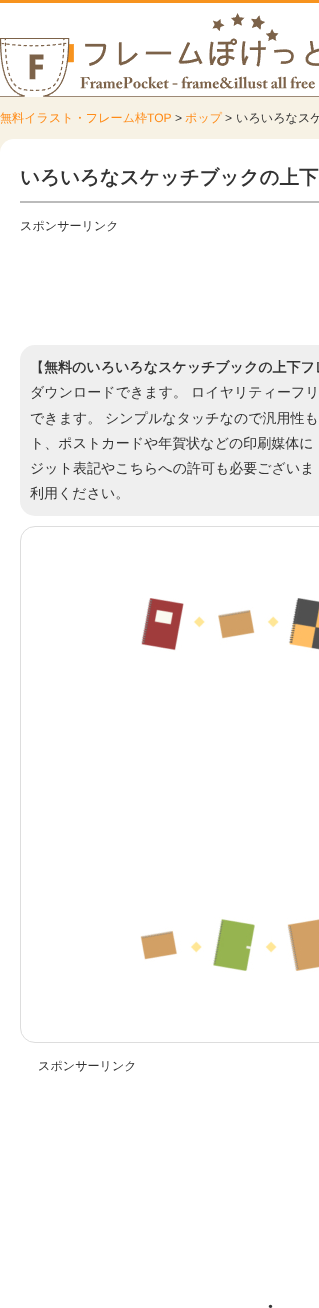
<!DOCTYPE html>
<meta charset="utf-8">
<style>body { margin: 0 } canvas { display: block }</style>
<canvas id="canvas" width="319" height="1308"></canvas>
<img id="img1" src="img_01.png" hidden>
<img id="img2" src="img_02.png" hidden>
<script>
window.onload = function () {
	const canvas = document.getElementById("canvas");
	const ctx = canvas.getContext("2d");
	ctx.miterLimit = 4;
	ctx.fontKerning = "normal";
	function txt(s, x, y) {
		ctx.fillText(s, x, y);
	}
	function fill(x, y, w, h) {
		ctx.fillRect(x, y, w, h);
	}
	function round(x, y, w, h, r) {
		ctx.beginPath();
		ctx.roundRect(x, y, w, h, r);
		ctx.fill();
	}
	function img(id, x, y, w, h) {
		ctx.drawImage(document.getElementById(id), x, y, w, h);
	}

	ctx.fillStyle = "#F7F2E5";
	fill(0, 0, 319, 1308);
	ctx.fillStyle = "#FFFFFF";
	fill(0, 3, 319, 10);
	ctx.fillStyle = "#F7931E";
	fill(0, 0, 319, 3);
	img("img1", 0, 13, 319, 84);
	ctx.fillStyle = "#FFFFFF";
	round(0, 139, 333, 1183, 14);
	ctx.fillStyle = "#BBBBBB";
	fill(20, 201, 299, 2);
	ctx.fillStyle = "#EFEFEF";
	round(20, 345, 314, 171, 15);
	ctx.beginPath();
	ctx.roundRect(20.5, 526.5, 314, 516, 14.5);
	ctx.strokeStyle = "#DDDDDD";
	ctx.stroke();
	img("img2", 140, 598, 179, 374);
	ctx.font = "500 12.1px WenQuanYi Zen Hei";
	ctx.fillStyle = "#FF8B17";
	txt("無料イラスト・フレーム枠", 0, 122);
	ctx.font = "12.1px Liberation Sans";
	txt("TOP", 147, 122);
	ctx.fillStyle = "#333333";
	txt(">", 175, 122);
	ctx.font = "500 12.1px WenQuanYi Zen Hei";
	ctx.fillStyle = "#FF8B17";
	txt("ポップ", 185, 122);
	ctx.font = "12.1px Liberation Sans";
	ctx.fillStyle = "#333333";
	txt(">", 225, 122);
	ctx.font = "500 12.1px WenQuanYi Zen Hei";
	txt("いろいろなスケ", 236, 122);
	ctx.font = "bold 19.5px WenQuanYi Zen Hei";
	txt("いろいろなスケッチブックの上下", 20, 184);
	ctx.font = "500 12.1px WenQuanYi Zen Hei";
	txt("スポンサーリンク", 20, 230);
	ctx.font = "500 14px WenQuanYi Zen Hei";
	txt("【", 30, 372);
	ctx.font = "bold 14px WenQuanYi Zen Hei";
	txt("無料のいろいろなスケッチブックの上下フレ", 44, 372);
	ctx.font = "500 14px WenQuanYi Zen Hei";
	txt("ダウンロードできます。", 30, 397);
	txt("ロイヤリティーフリ", 191, 397);
	txt("できます。", 30, 423);
	txt("シンプルなタッチなので汎用性も", 105, 423);
	txt("ト、ポストカードや年賀状などの印刷媒体に", 30, 448);
	txt("ジット表記やこちらへの許可も必要ございま", 30, 473);
	txt("利用ください。", 30, 498);
	ctx.font = "500 12.1px WenQuanYi Zen Hei";
	txt("スポンサーリンク", 38, 1070);
	ctx.font = "bold 18px WenQuanYi Zen Hei";
	txt("・", 261, 1313);
};
</script>
